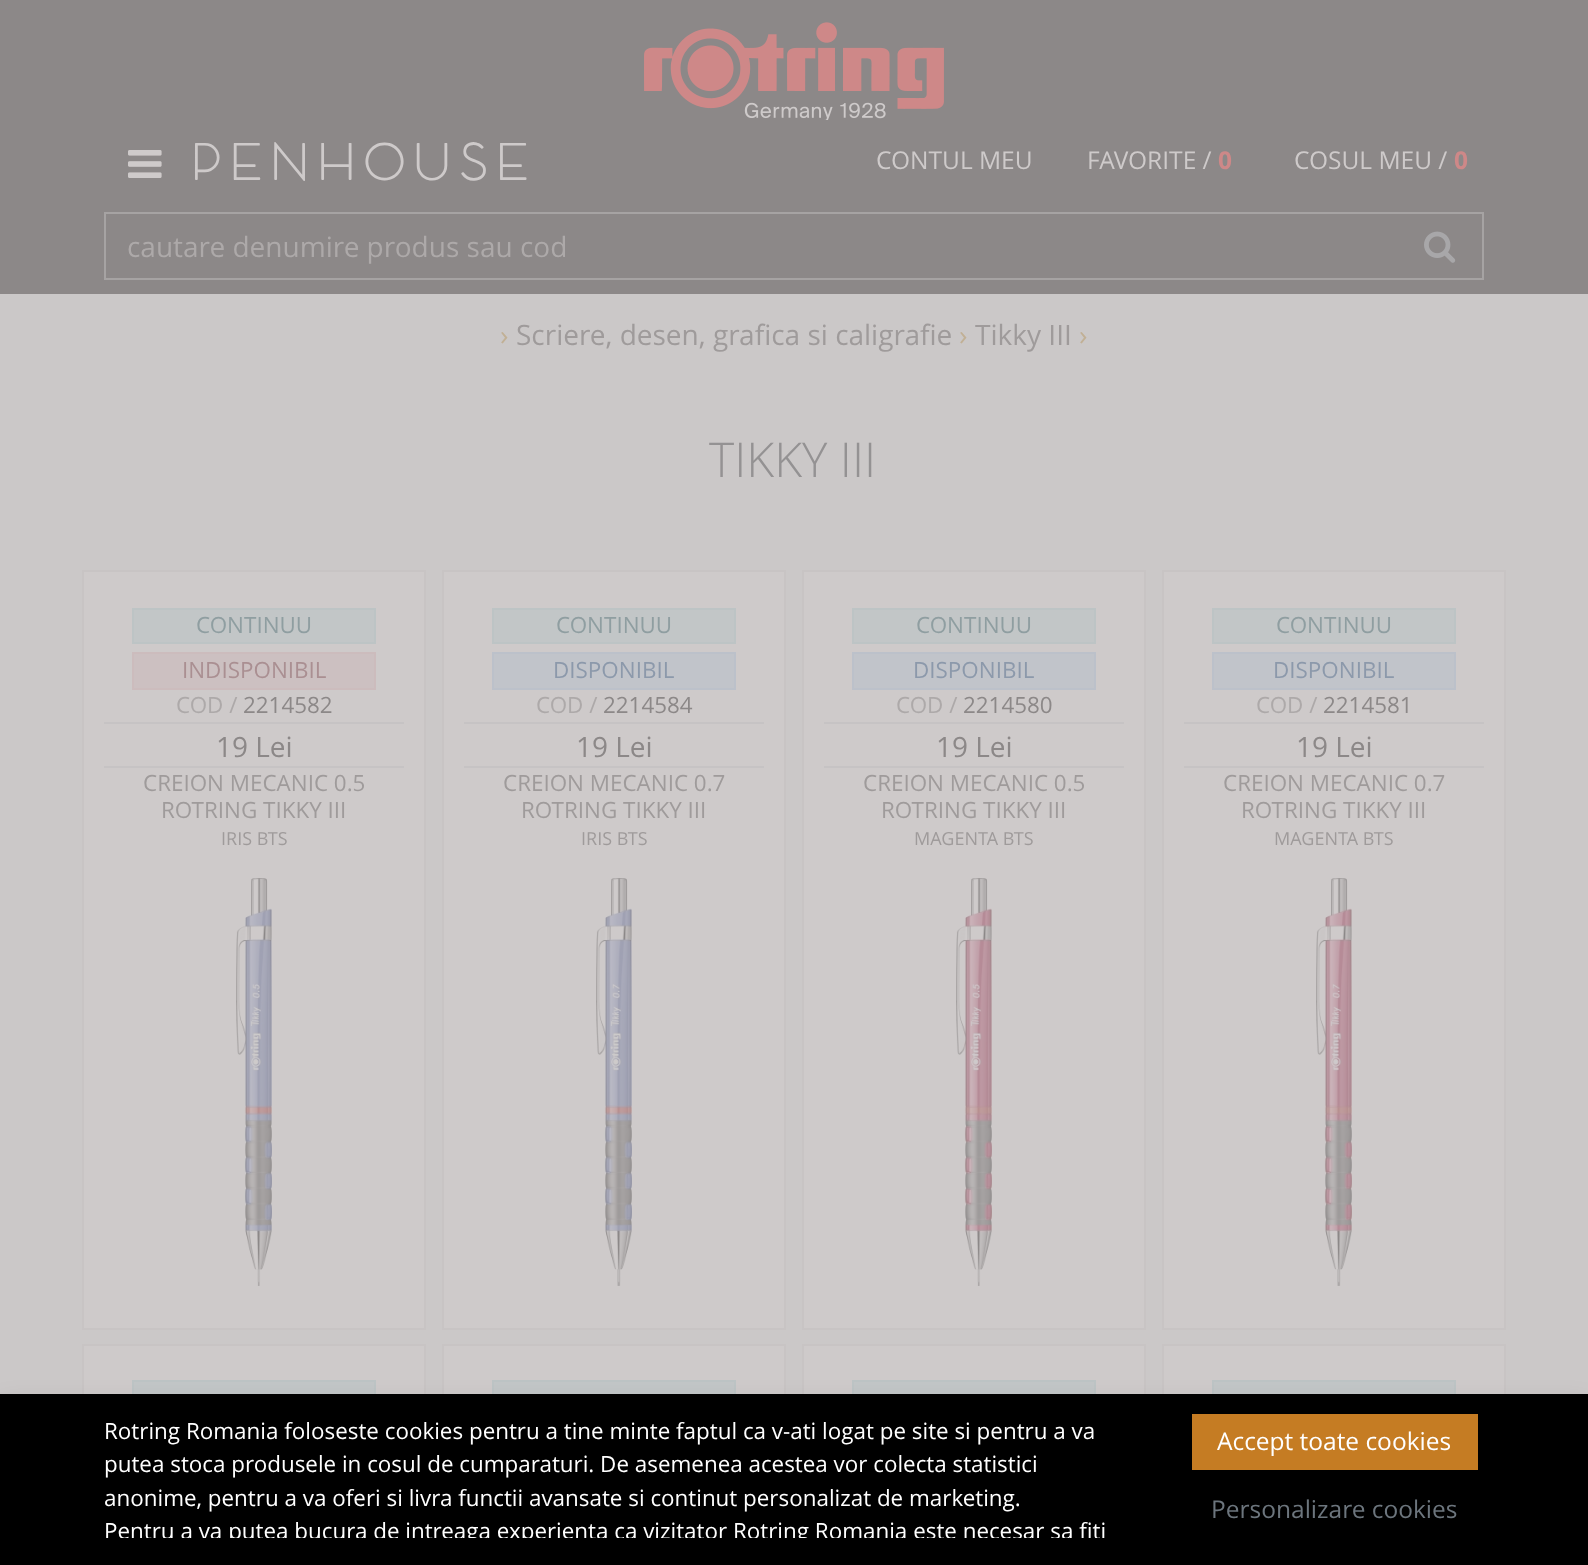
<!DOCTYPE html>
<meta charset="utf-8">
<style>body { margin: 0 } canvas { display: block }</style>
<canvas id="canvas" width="1588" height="1565"></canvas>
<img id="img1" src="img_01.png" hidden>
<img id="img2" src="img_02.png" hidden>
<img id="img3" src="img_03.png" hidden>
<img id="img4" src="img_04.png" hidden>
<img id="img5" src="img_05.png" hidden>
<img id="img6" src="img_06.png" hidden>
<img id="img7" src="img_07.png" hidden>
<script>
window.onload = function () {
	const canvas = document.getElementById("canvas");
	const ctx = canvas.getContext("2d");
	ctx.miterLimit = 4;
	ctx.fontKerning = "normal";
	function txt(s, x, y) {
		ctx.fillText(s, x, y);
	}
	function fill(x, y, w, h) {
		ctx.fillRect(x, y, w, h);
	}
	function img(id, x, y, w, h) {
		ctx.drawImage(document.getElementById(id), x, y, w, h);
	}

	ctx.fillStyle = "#CBC8C8";
	fill(0, 0, 1588, 1565);
	ctx.fillStyle = "#8C8888";
	fill(0, 0, 1588, 294);
	img("img1", 644, 22, 300, 98);
	img("img2", 128, 150, 34, 28);
	ctx.strokeStyle = "#A6A3A3";
	ctx.lineWidth = 2;
	ctx.strokeRect(105, 213, 1378, 66);
	img("img3", 1424, 231, 32, 32);
	ctx.fillStyle = "#CECACA";
	ctx.beginPath();
	ctx.rect(83, 571, 342, 758);
	ctx.fill();
	ctx.strokeStyle = "#C8C4C4";
	ctx.stroke();
	ctx.fillStyle = "#C2C6C7";
	ctx.beginPath();
	ctx.rect(133, 609, 242, 34);
	ctx.fill();
	ctx.strokeStyle = "#BDC4C5";
	ctx.stroke();
	ctx.fillStyle = "#CCC0C1";
	ctx.beginPath();
	ctx.rect(133, 653, 242, 36);
	ctx.fill();
	ctx.strokeStyle = "#CCBCBD";
	ctx.stroke();
	ctx.fillStyle = "#C6C3C4";
	fill(104, 722, 300, 2);
	fill(104, 766, 300, 2);
	img("img4", 236, 878, 36, 408);
	ctx.fillStyle = "#CECACA";
	ctx.beginPath();
	ctx.rect(443, 571, 342, 758);
	ctx.fill();
	ctx.strokeStyle = "#C8C4C4";
	ctx.stroke();
	ctx.fillStyle = "#C2C6C7";
	ctx.beginPath();
	ctx.rect(493, 609, 242, 34);
	ctx.fill();
	ctx.strokeStyle = "#BDC4C5";
	ctx.stroke();
	ctx.fillStyle = "#C1C4CA";
	ctx.beginPath();
	ctx.rect(493, 653, 242, 36);
	ctx.fill();
	ctx.strokeStyle = "#BCC1CA";
	ctx.stroke();
	ctx.fillStyle = "#C6C3C4";
	fill(464, 722, 300, 2);
	fill(464, 766, 300, 2);
	img("img5", 596, 878, 36, 408);
	ctx.fillStyle = "#CECACA";
	ctx.beginPath();
	ctx.rect(803, 571, 342, 758);
	ctx.fill();
	ctx.strokeStyle = "#C8C4C4";
	ctx.stroke();
	ctx.fillStyle = "#C2C6C7";
	ctx.beginPath();
	ctx.rect(853, 609, 242, 34);
	ctx.fill();
	ctx.strokeStyle = "#BDC4C5";
	ctx.stroke();
	ctx.fillStyle = "#C1C4CA";
	ctx.beginPath();
	ctx.rect(853, 653, 242, 36);
	ctx.fill();
	ctx.strokeStyle = "#BCC1CA";
	ctx.stroke();
	ctx.fillStyle = "#C6C3C4";
	fill(824, 722, 300, 2);
	fill(824, 766, 300, 2);
	img("img6", 956, 878, 36, 408);
	ctx.fillStyle = "#CECACA";
	ctx.beginPath();
	ctx.rect(1163, 571, 342, 758);
	ctx.fill();
	ctx.strokeStyle = "#C8C4C4";
	ctx.stroke();
	ctx.fillStyle = "#C2C6C7";
	ctx.beginPath();
	ctx.rect(1213, 609, 242, 34);
	ctx.fill();
	ctx.strokeStyle = "#BDC4C5";
	ctx.stroke();
	ctx.fillStyle = "#C1C4CA";
	ctx.beginPath();
	ctx.rect(1213, 653, 242, 36);
	ctx.fill();
	ctx.strokeStyle = "#BCC1CA";
	ctx.stroke();
	ctx.fillStyle = "#C6C3C4";
	fill(1184, 722, 300, 2);
	fill(1184, 766, 300, 2);
	img("img7", 1316, 878, 36, 408);
	ctx.fillStyle = "#CECACA";
	fill(84, 1346, 340, 48);
	ctx.strokeStyle = "#C8C4C4";
	ctx.strokeRect(83, 1345, 342, 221);
	ctx.fillStyle = "#C2C6C7";
	fill(134, 1382, 240, 12);
	ctx.strokeStyle = "#BDC4C5";
	ctx.strokeRect(133, 1381, 242, 36);
	ctx.fillStyle = "#CECACA";
	fill(444, 1346, 340, 48);
	ctx.strokeStyle = "#C8C4C4";
	ctx.strokeRect(443, 1345, 342, 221);
	ctx.fillStyle = "#C2C6C7";
	fill(494, 1382, 240, 12);
	ctx.strokeStyle = "#BDC4C5";
	ctx.strokeRect(493, 1381, 242, 36);
	ctx.fillStyle = "#CECACA";
	fill(804, 1346, 340, 48);
	ctx.strokeStyle = "#C8C4C4";
	ctx.strokeRect(803, 1345, 342, 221);
	ctx.fillStyle = "#C2C6C7";
	fill(854, 1382, 240, 12);
	ctx.strokeStyle = "#BDC4C5";
	ctx.strokeRect(853, 1381, 242, 36);
	ctx.fillStyle = "#CECACA";
	fill(1164, 1346, 340, 48);
	ctx.strokeStyle = "#C8C4C4";
	ctx.strokeRect(1163, 1345, 342, 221);
	ctx.fillStyle = "#C2C6C7";
	fill(1214, 1382, 240, 12);
	ctx.strokeStyle = "#BDC4C5";
	ctx.strokeRect(1213, 1381, 242, 36);
	ctx.fillStyle = "rgba(0, 0, 0, 0.15)";
	ctx.filter = "blur(14px)";
	ctx.beginPath();
	ctx.rect(0, 1408, 1588, 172);
	ctx.fill();
	ctx.filter = "none";
	ctx.fillStyle = "#000000";
	fill(0, 1394, 1588, 171);
	ctx.fillStyle = "#C57C23";
	fill(1192, 1414, 286, 56);
	ctx.letterSpacing = "8px";
	ctx.font = "300 50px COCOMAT";
	ctx.fillStyle = "#CECACA";
	txt("PENHOUSE", 191, 180);
	ctx.letterSpacing = "0px";
	ctx.font = "24.5px Open Sans";
	txt("CONTUL MEU", 876, 169);
	txt("FAVORITE /", 1087, 169);
	ctx.font = "bold 24.5px Open Sans";
	ctx.fillStyle = "#CE8888";
	txt("0", 1218, 169);
	ctx.font = "24.5px Open Sans";
	ctx.fillStyle = "#CECACA";
	txt("COSUL MEU /", 1294, 169);
	ctx.font = "bold 24.5px Open Sans";
	ctx.fillStyle = "#CE8888";
	txt("0", 1454, 169);
	ctx.font = "28px Open Sans";
	ctx.fillStyle = "#ADA9A9";
	txt("cautare denumire produs sau cod", 127, 257);
	ctx.fillStyle = "#C1B095";
	txt("›", 500, 345);
	ctx.fillStyle = "#9F9B9B";
	txt("Scriere, desen, grafica si caligrafie", 516, 345);
	ctx.fillStyle = "#C1B095";
	txt("›", 959, 345);
	ctx.fillStyle = "#9F9B9B";
	txt("Tikky III", 975, 345);
	ctx.fillStyle = "#C1B095";
	txt("›", 1079, 345);
	ctx.font = "300 48px Open Sans";
	ctx.fillStyle = "#949293";
	txt("TIKKY III", 709, 477);
	ctx.font = "22.4px Open Sans";
	ctx.fillStyle = "#8F9EA1";
	txt("CONTINUU", 196, 633);
	ctx.fillStyle = "#AA8F92";
	txt("INDISPONIBIL", 182, 678);
	ctx.fillStyle = "#ADA9A9";
	txt("COD /", 176, 713);
	ctx.fillStyle = "#8C8888";
	txt("2214582", 243, 713);
	ctx.font = "28px Open Sans";
	txt("19 Lei", 216, 757);
	ctx.font = "22.4px Open Sans";
	ctx.fillStyle = "#9F9B9B";
	txt("CREION MECANIC 0.5", 143, 791);
	txt("ROTRING TIKKY III", 161, 818);
	ctx.font = "18px Open Sans";
	txt("IRIS BTS", 221, 845);
	ctx.font = "22.4px Open Sans";
	ctx.fillStyle = "#8F9EA1";
	txt("CONTINUU", 556, 633);
	ctx.fillStyle = "#8C99AB";
	txt("DISPONIBIL", 553, 678);
	ctx.fillStyle = "#ADA9A9";
	txt("COD /", 536, 713);
	ctx.fillStyle = "#8C8888";
	txt("2214584", 603, 713);
	ctx.font = "28px Open Sans";
	txt("19 Lei", 576, 757);
	ctx.font = "22.4px Open Sans";
	ctx.fillStyle = "#9F9B9B";
	txt("CREION MECANIC 0.7", 503, 791);
	txt("ROTRING TIKKY III", 521, 818);
	ctx.font = "18px Open Sans";
	txt("IRIS BTS", 581, 845);
	ctx.font = "22.4px Open Sans";
	ctx.fillStyle = "#8F9EA1";
	txt("CONTINUU", 916, 633);
	ctx.fillStyle = "#8C99AB";
	txt("DISPONIBIL", 913, 678);
	ctx.fillStyle = "#ADA9A9";
	txt("COD /", 896, 713);
	ctx.fillStyle = "#8C8888";
	txt("2214580", 963, 713);
	ctx.font = "28px Open Sans";
	txt("19 Lei", 936, 757);
	ctx.font = "22.4px Open Sans";
	ctx.fillStyle = "#9F9B9B";
	txt("CREION MECANIC 0.5", 863, 791);
	txt("ROTRING TIKKY III", 881, 818);
	ctx.font = "18px Open Sans";
	txt("MAGENTA BTS", 914, 845);
	ctx.font = "22.4px Open Sans";
	ctx.fillStyle = "#8F9EA1";
	txt("CONTINUU", 1276, 633);
	ctx.fillStyle = "#8C99AB";
	txt("DISPONIBIL", 1273, 678);
	ctx.fillStyle = "#ADA9A9";
	txt("COD /", 1256, 713);
	ctx.fillStyle = "#8C8888";
	txt("2214581", 1323, 713);
	ctx.font = "28px Open Sans";
	txt("19 Lei", 1296, 757);
	ctx.font = "22.4px Open Sans";
	ctx.fillStyle = "#9F9B9B";
	txt("CREION MECANIC 0.7", 1223, 791);
	txt("ROTRING TIKKY III", 1241, 818);
	ctx.font = "18px Open Sans";
	txt("MAGENTA BTS", 1274, 845);
	ctx.font = "22.4px Open Sans";
	ctx.fillStyle = "#FFFFFF";
	txt("Rotring Romania foloseste cookies pentru a tine minte faptul ca v-ati logat pe site si pentru a va", 104, 1439);
	txt("putea stoca produsele in cosul de cumparaturi. De asemenea acestea vor colecta statistici", 104, 1472);
	txt("anonime, pentru a va oferi si livra functii avansate si continut personalizat de marketing.", 104, 1506);
	ctx.save();
	ctx.beginPath();
	ctx.rect(74, 1414, 1080, 124);
	ctx.clip();
	txt("Pentru a va putea bucura de intreaga experienta ca vizitator Rotring Romania este necesar sa fiti", 104, 1539);
	ctx.restore();
	ctx.font = "24.5px Open Sans";
	txt("Accept toate cookies", 1217, 1450);
	ctx.fillStyle = "#6C757D";
	txt("Personalizare cookies", 1211, 1518);
};
</script>
